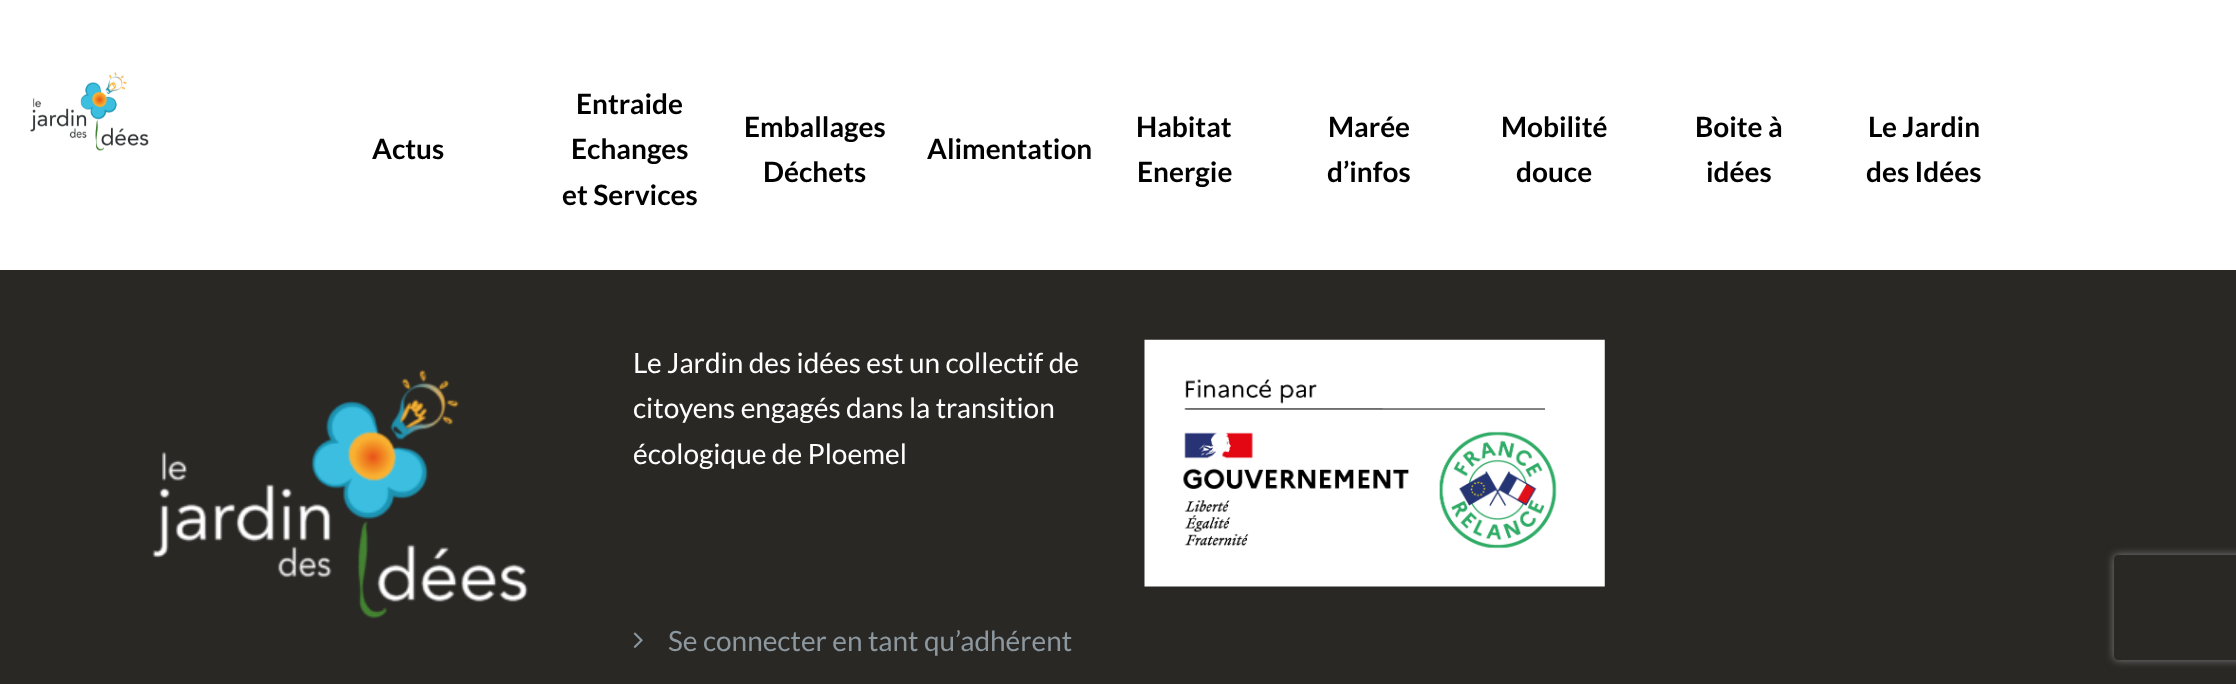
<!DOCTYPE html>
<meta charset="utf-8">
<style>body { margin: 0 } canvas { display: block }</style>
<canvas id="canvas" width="2236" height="684"></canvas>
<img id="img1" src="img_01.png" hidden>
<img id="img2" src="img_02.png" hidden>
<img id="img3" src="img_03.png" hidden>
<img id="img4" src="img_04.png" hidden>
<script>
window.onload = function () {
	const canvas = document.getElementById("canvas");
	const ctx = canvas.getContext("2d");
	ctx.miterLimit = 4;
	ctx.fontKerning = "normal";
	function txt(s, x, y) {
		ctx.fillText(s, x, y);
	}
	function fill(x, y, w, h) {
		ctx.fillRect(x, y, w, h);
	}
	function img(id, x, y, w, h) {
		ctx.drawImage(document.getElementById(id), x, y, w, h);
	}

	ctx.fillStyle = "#FFFFFF";
	fill(0, 0, 2236, 684);
	img("img1", 30, 71, 119, 80);
	ctx.fillStyle = "#292825";
	fill(0, 270, 2236, 414);
	img("img2", 152, 370, 376, 249);
	img("img3", 633, 632, 10, 16);
	img("img4", 1144, 339, 461, 248);
	ctx.save();
	ctx.beginPath();
	ctx.moveTo(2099, 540);
	ctx.lineTo(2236, 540);
	ctx.lineTo(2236, 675);
	ctx.lineTo(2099, 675);
	ctx.closePath();
	ctx.moveTo(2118, 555);
	ctx.lineTo(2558, 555);
	ctx.bezierCurveTo(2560, 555, 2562, 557, 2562, 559);
	ctx.lineTo(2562, 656);
	ctx.bezierCurveTo(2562, 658, 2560, 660, 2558, 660);
	ctx.lineTo(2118, 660);
	ctx.bezierCurveTo(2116, 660, 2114, 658, 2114, 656);
	ctx.lineTo(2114, 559);
	ctx.bezierCurveTo(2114, 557, 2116, 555, 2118, 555);
	ctx.closePath();
	ctx.clip("evenodd");
	ctx.fillStyle = "#808080";
	ctx.filter = "blur(4.5px)";
	ctx.beginPath();
	ctx.roundRect(2114, 555, 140, 105, 4);
	ctx.fill();
	ctx.filter = "none";
	ctx.restore();
	ctx.font = "bold 28px Lato";
	ctx.fillStyle = "#000000";
	txt("Actus", 372, 159);
	txt("Entraide", 576, 114);
	txt("Echanges", 571, 159);
	txt("et Services", 562, 205);
	txt("Emballages", 744, 137);
	txt("Déchets", 763, 182);
	txt("Alimentation", 927, 159);
	txt("Habitat", 1136, 137);
	txt("Energie", 1137, 182);
	txt("Marée", 1328, 137);
	txt("d’infos", 1327, 182);
	txt("Mobilité", 1501, 137);
	txt("douce", 1516, 182);
	txt("Boite à", 1695, 137);
	txt("idées", 1706, 182);
	txt("Le Jardin", 1868, 137);
	txt("des Idées", 1866, 182);
	ctx.font = "28px Lato";
	ctx.fillStyle = "#FFFFFF";
	txt("Le Jardin des idées est un collectif de", 633, 373);
	txt("citoyens engagés dans la transition", 633, 418);
	txt("écologique de Ploemel", 633, 464);
	ctx.fillStyle = "#8C979E";
	txt("Se connecter en tant qu’adhérent", 668, 651);
};
</script>
